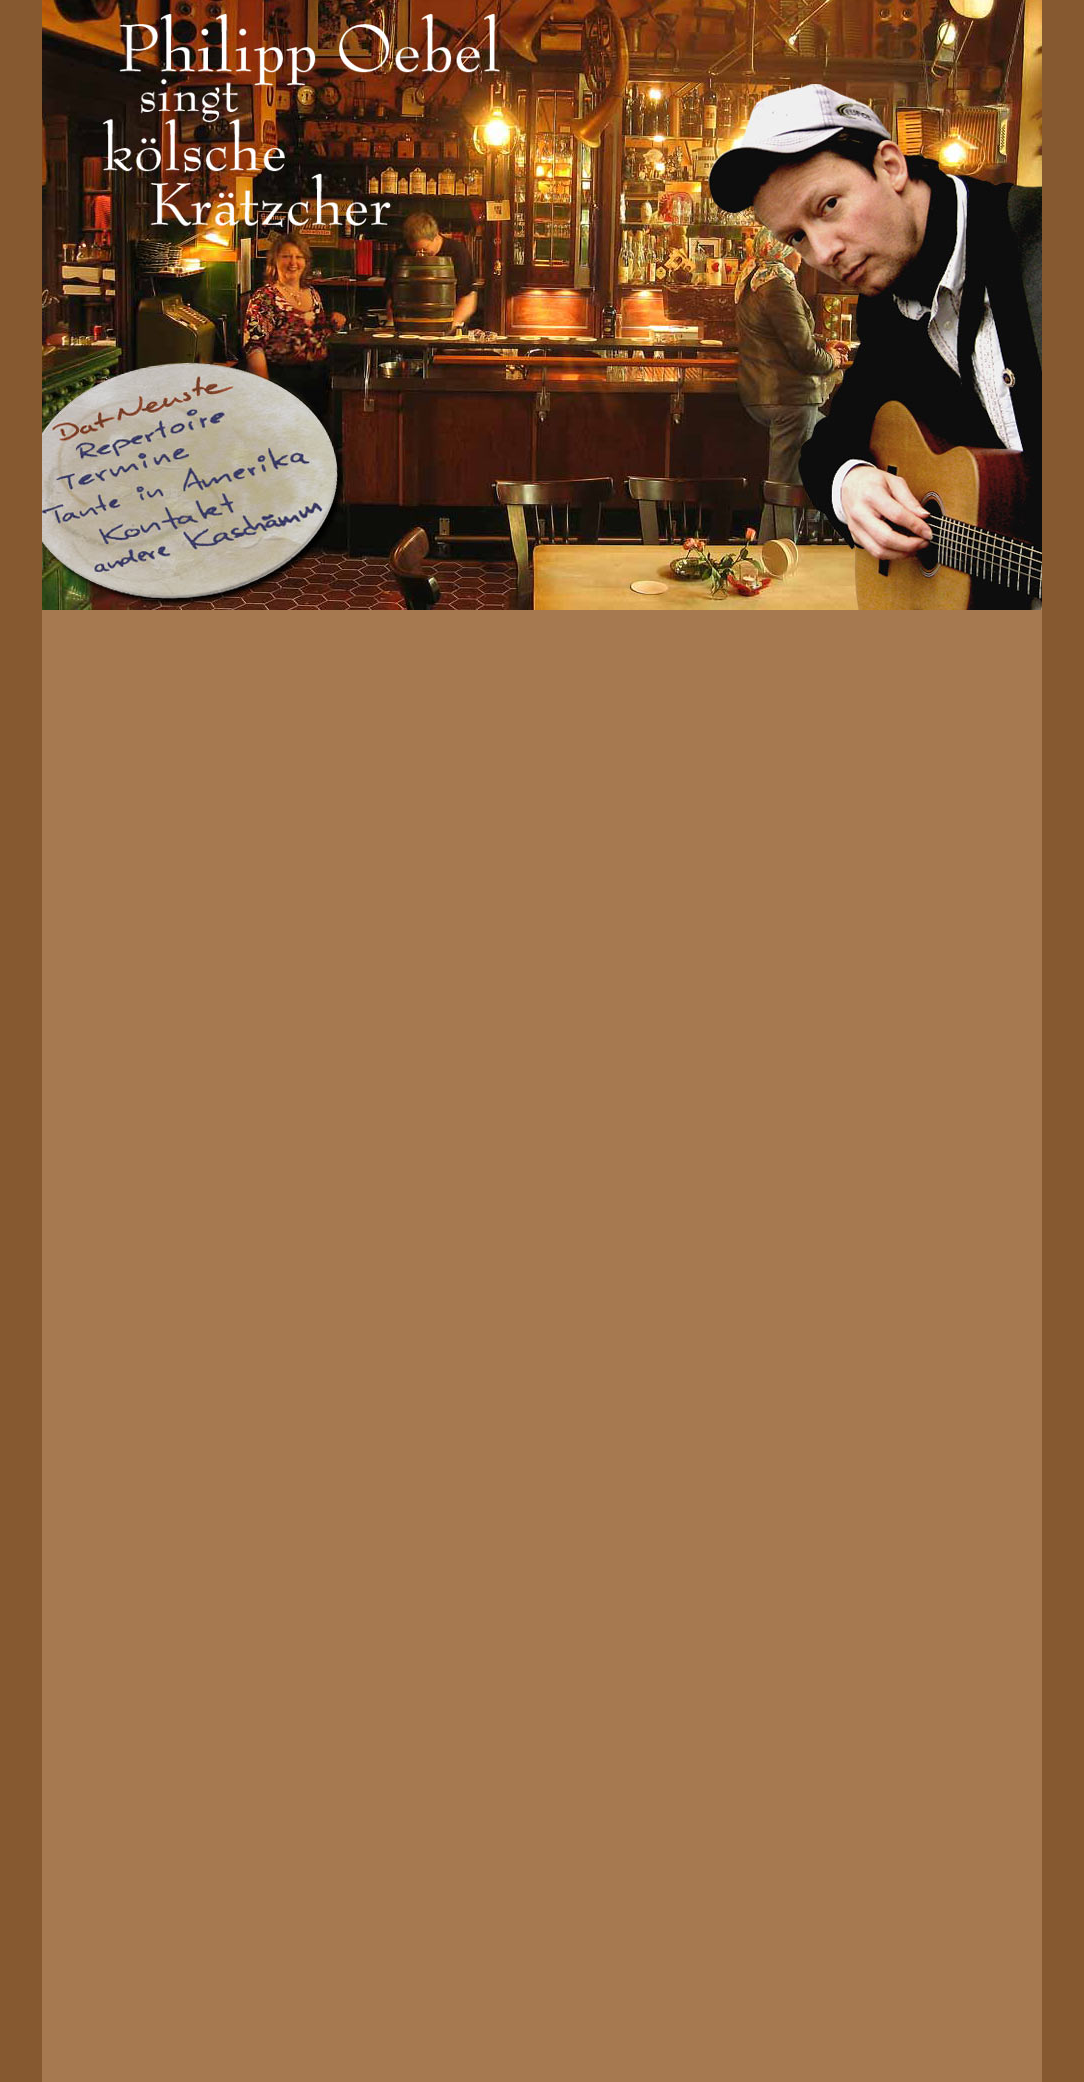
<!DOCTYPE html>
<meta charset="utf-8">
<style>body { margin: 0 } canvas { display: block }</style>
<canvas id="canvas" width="1084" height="2082"></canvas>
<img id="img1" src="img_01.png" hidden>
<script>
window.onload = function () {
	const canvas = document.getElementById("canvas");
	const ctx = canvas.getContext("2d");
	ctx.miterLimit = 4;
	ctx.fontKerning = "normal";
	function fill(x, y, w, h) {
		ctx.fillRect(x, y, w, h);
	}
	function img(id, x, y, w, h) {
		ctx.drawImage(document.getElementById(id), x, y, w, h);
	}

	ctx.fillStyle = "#865930";
	fill(0, 0, 1084, 2082);
	ctx.fillStyle = "#A67950";
	fill(42, 610, 1000, 1472);
	img("img1", 42, 0, 1000, 610);
};
</script>
